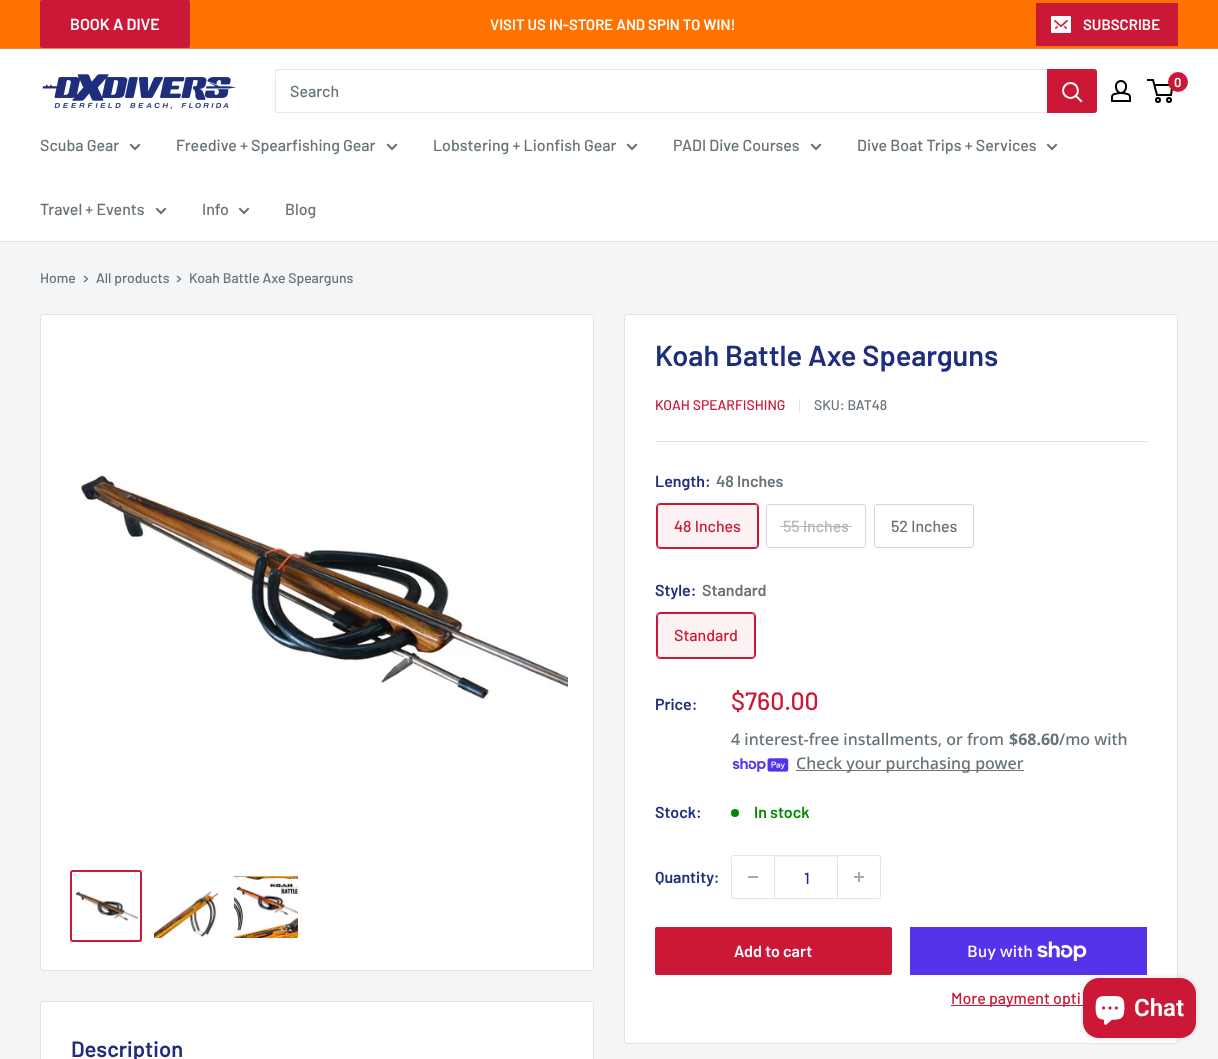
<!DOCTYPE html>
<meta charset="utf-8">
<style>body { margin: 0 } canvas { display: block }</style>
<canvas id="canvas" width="1218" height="1059"></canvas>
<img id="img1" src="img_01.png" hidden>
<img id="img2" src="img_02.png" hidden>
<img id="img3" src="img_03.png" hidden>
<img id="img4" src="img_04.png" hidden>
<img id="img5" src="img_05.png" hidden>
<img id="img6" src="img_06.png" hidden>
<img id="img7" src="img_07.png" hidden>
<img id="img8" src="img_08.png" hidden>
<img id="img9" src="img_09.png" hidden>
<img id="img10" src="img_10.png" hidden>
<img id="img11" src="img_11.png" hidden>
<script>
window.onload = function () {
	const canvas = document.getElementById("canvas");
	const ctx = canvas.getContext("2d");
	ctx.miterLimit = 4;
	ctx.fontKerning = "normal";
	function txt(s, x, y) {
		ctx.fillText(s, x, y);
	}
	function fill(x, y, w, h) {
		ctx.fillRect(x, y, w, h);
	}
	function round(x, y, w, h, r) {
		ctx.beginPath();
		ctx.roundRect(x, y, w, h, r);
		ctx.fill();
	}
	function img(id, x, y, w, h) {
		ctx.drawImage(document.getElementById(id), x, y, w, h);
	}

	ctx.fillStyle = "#F3F5F6";
	fill(0, 0, 1218, 1059);
	ctx.fillStyle = "#FF7200";
	fill(0, 0, 1218, 48);
	ctx.fillStyle = "#E38448";
	fill(0, 48, 1218, 1);
	ctx.fillStyle = "#CB1836";
	round(40, 0, 150, 48, 2);
	fill(1036, 3, 142, 43);
	img("img1", 1051, 16, 20, 17);
	ctx.fillStyle = "#FFFFFF";
	fill(0, 49, 1218, 192);
	img("img2", 42, 74, 194, 35);
	img("img3", 1111, 80, 20, 22);
	ctx.beginPath();
	ctx.arc(1158, 100, 2, 0, Math.PI * 2);
	ctx.strokeStyle = "#000000";
	ctx.lineWidth = 2;
	ctx.stroke();
	ctx.beginPath();
	ctx.arc(1169, 100, 2, 0, Math.PI * 2);
	ctx.stroke();
	ctx.beginPath();
	ctx.moveTo(1154.5, 85);
	ctx.lineTo(1172.5, 85);
	ctx.lineTo(1171, 95);
	ctx.lineTo(1157, 95);
	ctx.lineTo(1153, 80);
	ctx.lineTo(1147, 80);
	ctx.stroke();
	ctx.fillStyle = "#CB1836";
	ctx.beginPath();
	ctx.arc(1178, 82, 10, 0, Math.PI * 2);
	ctx.fill();
	ctx.fillStyle = "#E3E7FA";
	ctx.beginPath();
	ctx.moveTo(276, 112);
	ctx.bezierCurveTo(276, 113, 277, 113, 278, 113);
	ctx.lineTo(1094, 113);
	ctx.bezierCurveTo(1096, 113, 1097, 112, 1097, 110);
	ctx.lineTo(1097, 72);
	ctx.bezierCurveTo(1097, 71, 1097, 70, 1096, 70);
	ctx.lineTo(1096, 103);
	ctx.bezierCurveTo(1096, 105, 1098, 112, 1093, 112);
	ctx.closePath();
	ctx.fill();
	ctx.beginPath();
	ctx.moveTo(279, 70);
	ctx.lineTo(1096, 70);
	ctx.bezierCurveTo(1096, 69, 1095, 69, 1094, 69);
	ctx.lineTo(278, 69);
	ctx.bezierCurveTo(276, 69, 275, 70, 275, 72);
	ctx.lineTo(275, 110);
	ctx.bezierCurveTo(275, 111, 275, 112, 276, 112);
	ctx.lineTo(276, 79);
	ctx.bezierCurveTo(276, 77, 274, 70, 279, 70);
	ctx.closePath();
	ctx.fill();
	ctx.fillStyle = "#CB1836";
	ctx.beginPath();
	ctx.roundRect(1047, 69, 50, 44, [0, 3, 3, 0]);
	ctx.fill();
	ctx.beginPath();
	ctx.moveTo(1081, 101);
	ctx.lineTo(1076, 96);
	ctx.strokeStyle = "#FFFFFF";
	ctx.lineCap = "square";
	ctx.stroke();
	ctx.beginPath();
	ctx.arc(1070.5, 90.5, 7.5, 0, Math.PI * 2);
	ctx.stroke();
	ctx.fillStyle = "#E1E3E4";
	fill(0, 241, 1218, 1);
	ctx.beginPath();
	ctx.moveTo(139, 145);
	ctx.lineTo(135, 149);
	ctx.lineTo(131, 145);
	ctx.strokeStyle = "#677279";
	ctx.stroke();
	ctx.beginPath();
	ctx.moveTo(396, 145);
	ctx.lineTo(392, 149);
	ctx.lineTo(388, 145);
	ctx.stroke();
	ctx.beginPath();
	ctx.moveTo(636, 145);
	ctx.lineTo(632, 149);
	ctx.lineTo(628, 145);
	ctx.stroke();
	ctx.beginPath();
	ctx.moveTo(820, 145);
	ctx.lineTo(816, 149);
	ctx.lineTo(812, 145);
	ctx.stroke();
	ctx.beginPath();
	ctx.moveTo(1056, 145);
	ctx.lineTo(1052, 149);
	ctx.lineTo(1048, 145);
	ctx.stroke();
	ctx.beginPath();
	ctx.moveTo(165, 209);
	ctx.lineTo(161, 213);
	ctx.lineTo(157, 209);
	ctx.stroke();
	ctx.beginPath();
	ctx.moveTo(248, 209);
	ctx.lineTo(244, 213);
	ctx.lineTo(240, 209);
	ctx.stroke();
	ctx.beginPath();
	ctx.moveTo(84.5, 276.5);
	ctx.lineTo(87.5, 279);
	ctx.lineTo(84.5, 281.5);
	ctx.lineWidth = 1.3;
	ctx.stroke();
	ctx.beginPath();
	ctx.moveTo(177.5, 276.5);
	ctx.lineTo(180.5, 279);
	ctx.lineTo(177.5, 281.5);
	ctx.stroke();
	ctx.fillStyle = "#FFFFFF";
	ctx.beginPath();
	ctx.roundRect(40.5, 314.5, 553, 656, 2.5);
	ctx.fill();
	ctx.strokeStyle = "#E1E3E4";
	ctx.lineWidth = 1;
	ctx.stroke();
	img("img4", 79, 475, 489, 225);
	ctx.beginPath();
	ctx.roundRect(71, 871, 70, 70, 2);
	ctx.strokeStyle = "#CB1836";
	ctx.lineWidth = 2;
	ctx.stroke();
	img("img5", 76, 891, 62, 30);
	img("img6", 154, 890, 64, 48);
	img("img7", 234, 874, 64, 64);
	ctx.beginPath();
	ctx.roundRect(624.5, 314.5, 553, 729, 2.5);
	ctx.fill();
	ctx.strokeStyle = "#E1E3E4";
	ctx.lineWidth = 1;
	ctx.stroke();
	ctx.fillStyle = "#E1E3E4";
	fill(799, 399, 1, 13);
	fill(655, 441, 492, 1);
	ctx.beginPath();
	ctx.roundRect(656.5, 503.5, 102, 45, 3.5);
	ctx.strokeStyle = "#CB1836";
	ctx.stroke();
	ctx.fillStyle = "rgba(203, 24, 54, 0.06)";
	fill(657, 504, 101, 44);
	ctx.beginPath();
	ctx.roundRect(657.5, 504.5, 100, 43, 2.5);
	ctx.stroke();
	ctx.beginPath();
	ctx.roundRect(766.5, 504.5, 99, 43, 2.5);
	ctx.strokeStyle = "#D4D6D8";
	ctx.stroke();
	ctx.fillStyle = "#B3B9BC";
	fill(780, 526, 72, 1);
	ctx.beginPath();
	ctx.roundRect(874.5, 504.5, 99, 43, 2.5);
	ctx.stroke();
	ctx.beginPath();
	ctx.roundRect(656.5, 612.5, 99, 46, 3.5);
	ctx.strokeStyle = "#CB1836";
	ctx.stroke();
	ctx.fillStyle = "rgba(203, 24, 54, 0.06)";
	fill(657, 613, 98, 45);
	ctx.beginPath();
	ctx.roundRect(657.5, 613.5, 97, 44, 2.5);
	ctx.stroke();
	img("img8", 732, 758, 57, 14);
	ctx.fillStyle = "#677279";
	fill(796, 770, 228, 1);
	ctx.fillStyle = "#008A00";
	ctx.beginPath();
	ctx.arc(735, 813, 4, 0, Math.PI * 2);
	ctx.fill();
	ctx.beginPath();
	ctx.roundRect(731.5, 855.5, 149, 43, 2.5);
	ctx.strokeStyle = "#E1E3E4";
	ctx.stroke();
	ctx.fillStyle = "#A4AAAF";
	fill(748, 876, 10, 2);
	ctx.fillStyle = "#F3F4F4";
	fill(775, 856, 62, 1);
	ctx.fillStyle = "#E1E3E4";
	fill(837, 856, 1, 42);
	fill(774, 856, 1, 42);
	img("img9", 854, 872, 10, 10);
	ctx.fillStyle = "#CB1836";
	round(655, 927, 237, 48, 2);
	ctx.fillStyle = "#5433EB";
	fill(910, 927, 237, 48);
	img("img10", 1037, 941, 50, 20);
	ctx.fillStyle = "#CB1836";
	fill(951, 1005, 132, 1);
	ctx.fillStyle = "#FFFFFF";
	ctx.beginPath();
	ctx.roundRect(40.5, 1001.5, 553, 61, 2.5);
	ctx.fill();
	ctx.stroke();
	ctx.fillStyle = "rgba(0, 0, 0, 0.15)";
	ctx.filter = "blur(2.5px)";
	ctx.beginPath();
	ctx.roundRect(1083, 978, 113, 60, 16);
	ctx.fill();
	ctx.filter = "none";
	ctx.fillStyle = "#CB1836";
	round(1083, 978, 113, 60, 16);
	img("img11", 1095, 996, 30, 29);
	ctx.font = "600 16px Barlow";
	ctx.fillStyle = "#FFFFFF";
	txt("BOOK A DIVE", 70, 30);
	ctx.font = "600 15px Barlow";
	txt("VISIT US IN-STORE AND SPIN TO WIN!", 490, 30);
	txt("SUBSCRIBE", 1083, 30);
	ctx.font = "600 13px Barlow";
	txt("0", 1174, 87);
	ctx.font = "500 16px Barlow";
	ctx.fillStyle = "#677279";
	txt("Search", 290, 97);
	txt("Scuba Gear", 40, 151);
	txt("Freedive + Spearfishing Gear", 176, 151);
	txt("Lobstering + Lionfish Gear", 433, 151);
	txt("PADI Dive Courses", 673, 151);
	txt("Dive Boat Trips + Services", 857, 151);
	txt("Travel + Events", 40, 215);
	txt("Info", 202, 215);
	txt("Blog", 285, 215);
	ctx.font = "500 14px Barlow";
	txt("Home", 40, 283);
	txt("All products", 96, 283);
	txt("Koah Battle Axe Spearguns", 189, 283);
	ctx.font = "600 29px Barlow";
	ctx.fillStyle = "#1E2D7D";
	txt("Koah Battle Axe Spearguns", 655, 366);
	ctx.font = "500 14px Barlow";
	ctx.fillStyle = "#CB1836";
	txt("KOAH SPEARFISHING", 655, 410);
	ctx.fillStyle = "#677279";
	txt("SKU: BAT48", 814, 410);
	ctx.font = "600 16px Barlow";
	ctx.fillStyle = "#1E2D7D";
	txt("Length:", 655, 487);
	ctx.fillStyle = "#677279";
	txt("48 Inches", 716, 487);
	ctx.font = "500 16px Barlow";
	ctx.fillStyle = "#CB1836";
	txt("48 Inches", 674, 532);
	ctx.fillStyle = "#B3B9BC";
	txt("55 Inches", 783, 532);
	ctx.fillStyle = "#677279";
	txt("52 Inches", 891, 532);
	ctx.font = "600 16px Barlow";
	ctx.fillStyle = "#1E2D7D";
	txt("Style:", 655, 596);
	ctx.fillStyle = "#677279";
	txt("Standard", 702, 596);
	ctx.font = "500 16px Barlow";
	ctx.fillStyle = "#CB1836";
	txt("Standard", 674, 641);
	ctx.font = "600 16px Barlow";
	ctx.fillStyle = "#1E2D7D";
	txt("Price:", 655, 710);
	ctx.font = "500 25px Barlow";
	ctx.fillStyle = "#CB1836";
	txt("$760.00", 731, 710);
	ctx.font = "500 16px Noto Sans";
	ctx.fillStyle = "#677279";
	txt("4 interest-free installments, or from", 731, 745);
	ctx.font = "bold 16px Noto Sans";
	txt("$68.60", 1009, 745);
	ctx.font = "500 16px Noto Sans";
	txt("/mo with", 1059, 745);
	txt("Check your purchasing power", 796, 769);
	ctx.font = "600 16px Barlow";
	ctx.fillStyle = "#1E2D7D";
	txt("Stock:", 655, 818);
	ctx.fillStyle = "#008A00";
	txt("In stock", 754, 818);
	ctx.fillStyle = "#1E2D7D";
	txt("Quantity:", 655, 883);
	ctx.font = "500 16px Barlow";
	txt("1", 804, 884);
	ctx.font = "600 16px Barlow";
	ctx.fillStyle = "#FFFFFF";
	txt("Add to cart", 734, 957);
	ctx.font = "500 16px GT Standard";
	txt("Buy with", 967, 957);
	ctx.font = "500 16px Barlow";
	ctx.fillStyle = "#CB1836";
	txt("More payment opti", 951, 1004);
	ctx.font = "600 22px Barlow";
	ctx.fillStyle = "#1E2D7D";
	txt("Description", 71, 1057);
	ctx.font = "600 24px Roboto";
	ctx.fillStyle = "#FFFFFF";
	txt("Chat", 1134, 1016);
};
</script>
